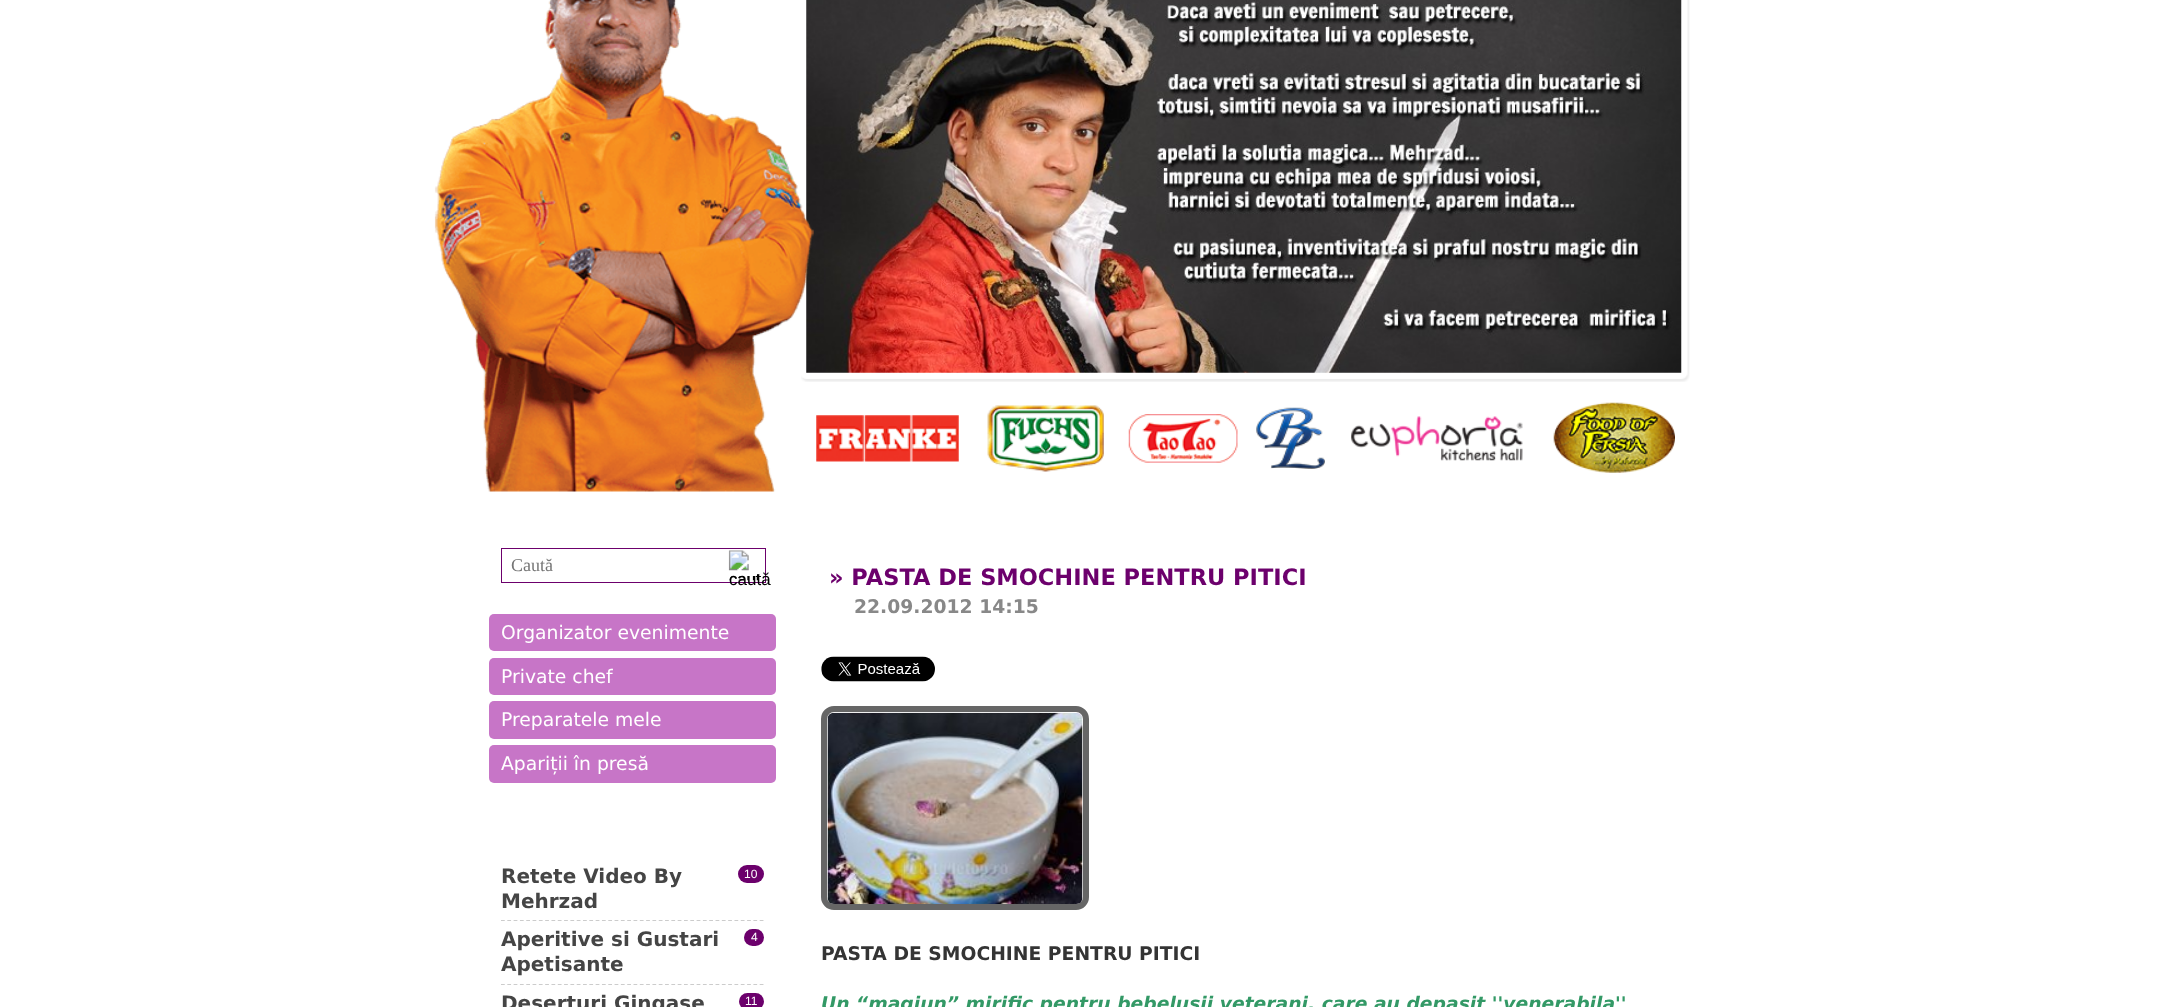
<!DOCTYPE html>
<meta charset="utf-8">
<style>body { margin: 0 } canvas { display: block }</style>
<canvas id="canvas" width="2177" height="1007"></canvas>
<img id="img1" src="img_02.png" hidden>
<img id="img2" src="img_03.png" hidden>
<img id="img3" src="img_01.png" hidden>
<img id="img4" src="img_04.png" hidden>
<img id="img5" src="img_05.png" hidden>
<img id="img6" src="img_06.png" hidden>
<img id="img7" src="img_07.png" hidden>
<img id="img8" src="img_08.png" hidden>
<img id="img9" src="img_09.png" hidden>
<img id="img10" src="img_10.png" hidden>
<img id="img11" src="img_11.png" hidden>
<img id="img12" src="img_12.png" hidden>
<script>
window.onload = function () {
	const canvas = document.getElementById("canvas");
	const ctx = canvas.getContext("2d");
	ctx.miterLimit = 4;
	ctx.fontKerning = "normal";
	function txt(s, x, y) {
		ctx.fillText(s, x, y);
	}
	function fill(x, y, w, h) {
		ctx.fillRect(x, y, w, h);
	}
	function round(x, y, w, h, r) {
		ctx.beginPath();
		ctx.roundRect(x, y, w, h, r);
		ctx.fill();
	}
	function img(id, x, y, w, h) {
		ctx.drawImage(document.getElementById(id), x, y, w, h);
	}

	ctx.fillStyle = "#FFFFFF";
	fill(0, 0, 2177, 1007);
	img("img1", 801, 0, 889, 382);
	img("img2", 806, 0, 876, 373);
	img("img3", 434, 0, 380, 492);
	img("img4", 816, 415, 143, 47);
	img("img5", 987, 405, 117, 67);
	img("img6", 1128, 414, 110, 49);
	img("img7", 1256, 407, 69, 62);
	img("img8", 1351, 416, 172, 45);
	img("img9", 1553, 402, 122, 71);
	ctx.strokeStyle = "#6C006C";
	ctx.strokeRect(501.5, 548.5, 264, 34);
	img("img10", 728, 550, 31, 31);
	ctx.fillStyle = "#C775C7";
	round(489, 614, 287, 37, 5);
	round(489, 658, 287, 37, 5);
	round(489, 701, 287, 38, 5);
	round(489, 745, 287, 38, 5);
	ctx.fillStyle = "#6C006C";
	round(738, 865, 26, 18, 9);
	ctx.beginPath();
	ctx.moveTo(501, 920.5);
	ctx.lineTo(764, 920.5);
	ctx.strokeStyle = "#CCCCCC";
	ctx.lineWidth = 1.2;
	ctx.setLineDash([3.75, 2.56]);
	ctx.stroke();
	round(744, 929, 20, 17, 8.5);
	ctx.beginPath();
	ctx.moveTo(501, 984.5);
	ctx.lineTo(764, 984.5);
	ctx.stroke();
	round(739, 993, 25, 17, 8.5);
	img("img11", 821, 656, 114, 26);
	ctx.beginPath();
	ctx.roundRect(824, 709, 262, 198, 10);
	ctx.strokeStyle = "#666666";
	ctx.lineWidth = 6;
	ctx.setLineDash([]);
	ctx.stroke();
	img("img12", 827, 712, 256, 192);
	ctx.font = "18px Liberation Serif";
	ctx.fillStyle = "#757575";
	txt("Caută", 511, 571);
	ctx.font = "17px Liberation Sans";
	ctx.fillStyle = "#000000";
	txt("caută", 729, 585);
	ctx.font = "18.75px DejaVu Sans";
	ctx.fillStyle = "#FFFFFF";
	txt("Organizator evenimente", 501, 639);
	txt("Private chef", 501, 683);
	txt("Preparatele mele", 501, 726);
	txt("Apariții în presă", 501, 770);
	ctx.font = "bold 20px DejaVu Sans";
	ctx.fillStyle = "#454545";
	txt("Retete Video By", 501, 883);
	ctx.font = "12px Liberation Sans";
	ctx.fillStyle = "#FFFFFF";
	txt("10", 744, 878);
	ctx.font = "bold 20px DejaVu Sans";
	ctx.fillStyle = "#454545";
	txt("Mehrzad", 501, 908);
	txt("Aperitive si Gustari", 501, 946);
	ctx.font = "12px Liberation Sans";
	ctx.fillStyle = "#FFFFFF";
	txt("4", 751, 941);
	ctx.font = "bold 20px DejaVu Sans";
	ctx.fillStyle = "#454545";
	txt("Apetisante", 501, 971);
	txt("Deserturi Gingase", 501, 1010);
	ctx.font = "12px Liberation Sans";
	ctx.fillStyle = "#FFFFFF";
	txt("11", 745, 1005);
	ctx.font = "bold 22.5px DejaVu Sans";
	ctx.fillStyle = "#6C006C";
	txt("» PASTA DE SMOCHINE PENTRU PITICI", 829, 585);
	ctx.font = "bold 18.75px DejaVu Sans";
	ctx.fillStyle = "#888888";
	txt("22.09.2012 14:15", 854, 613);
	ctx.fillStyle = "#343434";
	txt("PASTA DE SMOCHINE PENTRU PITICI", 821, 960);
	ctx.font = "italic bold 18.75px DejaVu Sans";
	ctx.fillStyle = "#339966";
	txt("Un “magiun” mirific pentru bebelusii veterani, care au depasit ''venerabila''", 821, 1010);
};
</script>
